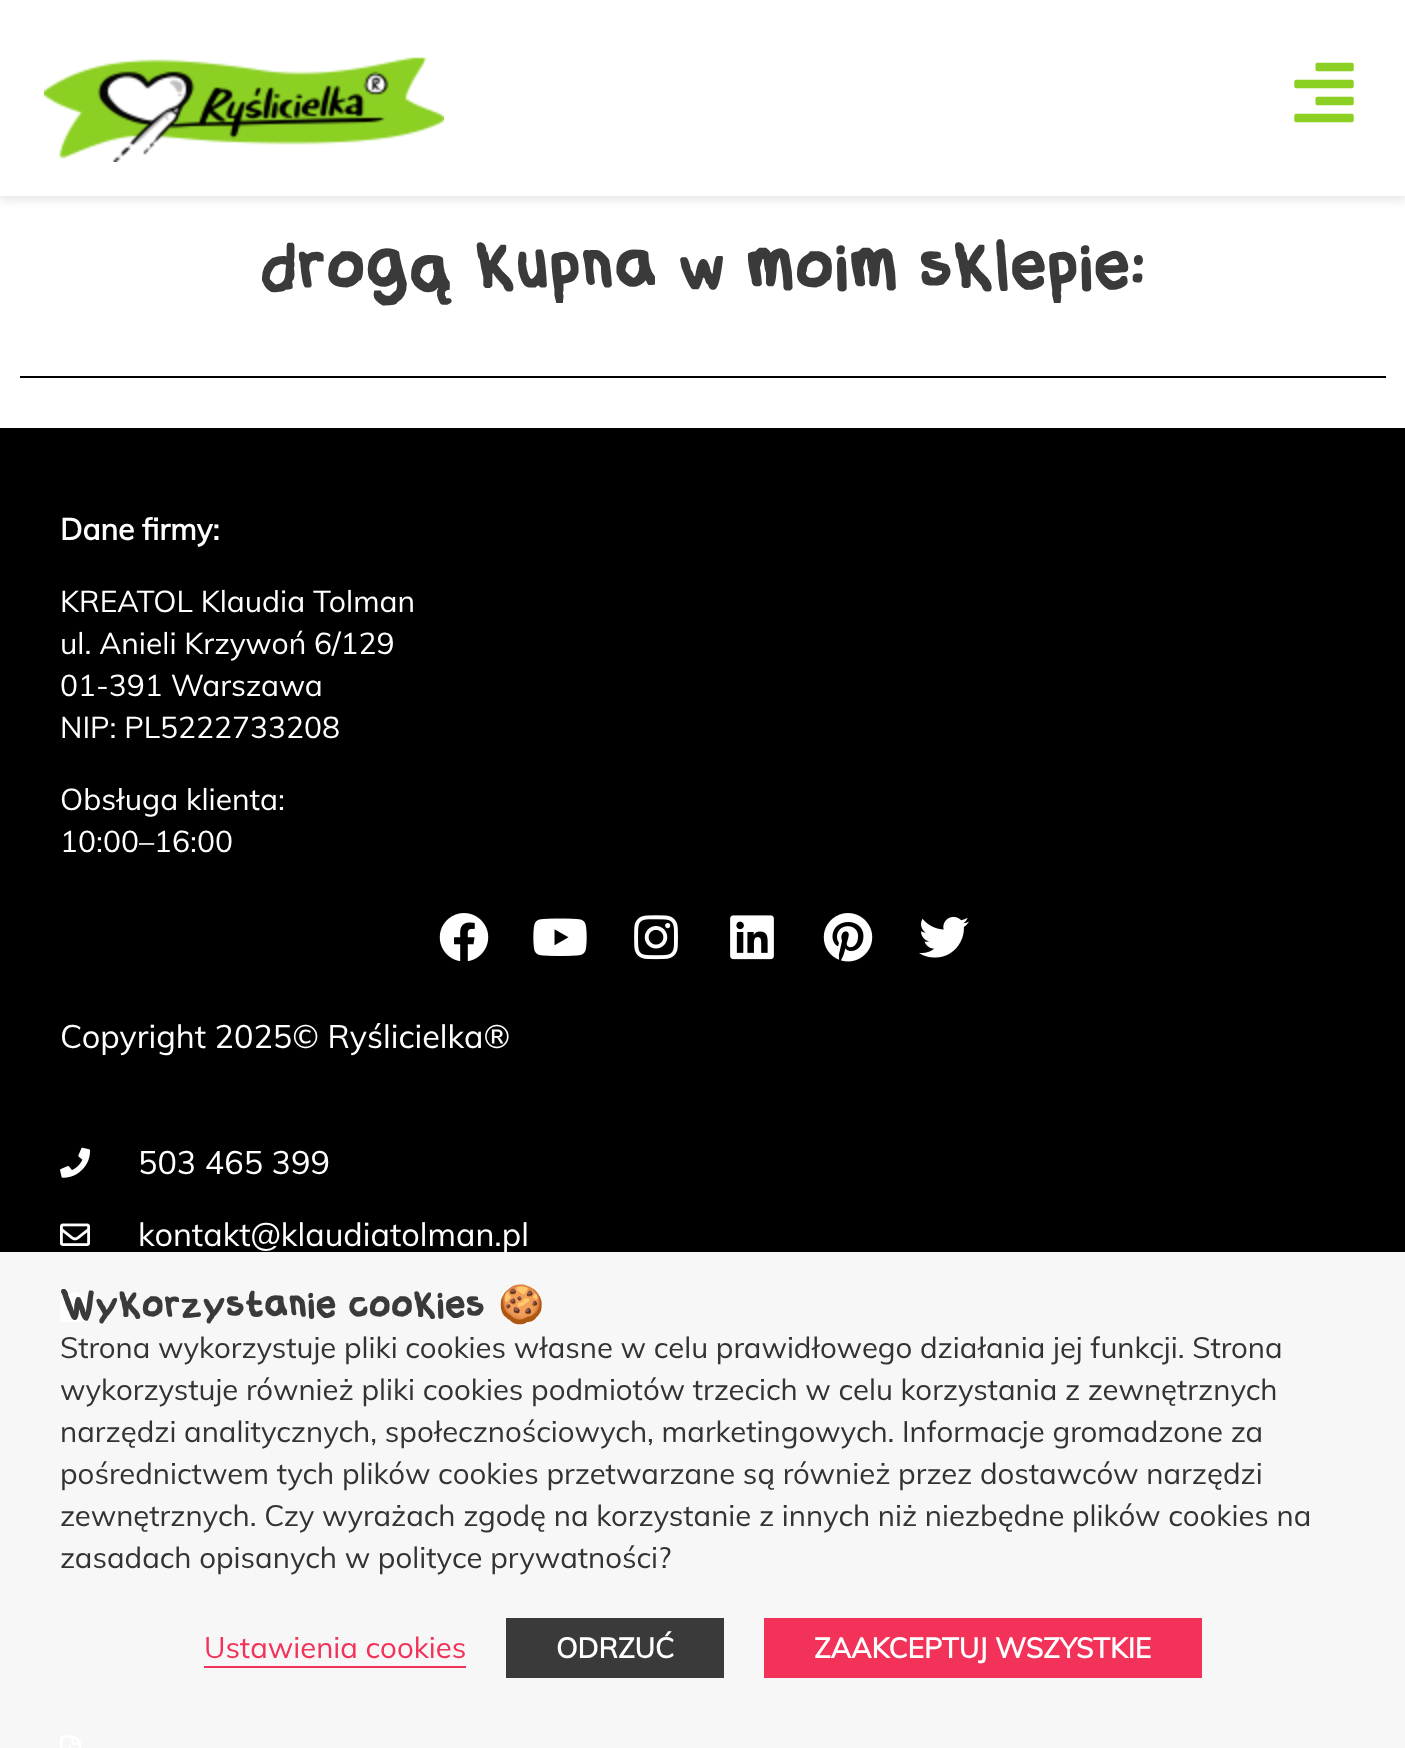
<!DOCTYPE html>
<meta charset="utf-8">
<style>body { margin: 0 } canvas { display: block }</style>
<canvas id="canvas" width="1405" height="1748"></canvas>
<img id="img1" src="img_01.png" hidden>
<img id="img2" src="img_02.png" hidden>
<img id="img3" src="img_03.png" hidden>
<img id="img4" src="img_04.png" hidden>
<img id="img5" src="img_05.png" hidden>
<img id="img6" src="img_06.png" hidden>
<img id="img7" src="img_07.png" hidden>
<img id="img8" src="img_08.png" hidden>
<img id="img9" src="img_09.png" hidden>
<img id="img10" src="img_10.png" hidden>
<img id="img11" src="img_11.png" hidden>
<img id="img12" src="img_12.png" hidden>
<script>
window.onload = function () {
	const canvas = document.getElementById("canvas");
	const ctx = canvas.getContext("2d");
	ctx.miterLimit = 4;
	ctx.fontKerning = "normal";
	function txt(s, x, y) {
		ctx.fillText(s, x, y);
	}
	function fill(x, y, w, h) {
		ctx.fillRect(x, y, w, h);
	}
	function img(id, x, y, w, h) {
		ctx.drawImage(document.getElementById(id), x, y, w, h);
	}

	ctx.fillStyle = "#FFFFFF";
	fill(0, 0, 1405, 1748);
	ctx.fillStyle = "rgba(0, 0, 0, 0.1)";
	ctx.filter = "blur(5px)";
	ctx.beginPath();
	ctx.rect(0, 4, 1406, 196);
	ctx.fill();
	ctx.filter = "none";
	ctx.fillStyle = "#FFFFFF";
	fill(0, 0, 1405, 196);
	img("img1", 44, 57, 400, 105);
	img("img2", 1294, 62, 60, 61);
	ctx.fillStyle = "#000000";
	fill(20, 376, 1366, 2);
	fill(0, 428, 1405, 1320);
	img("img3", 439, 913, 50, 49);
	img("img4", 533, 918, 54, 38);
	img("img5", 634, 915, 44, 45);
	img("img6", 730, 915, 44, 45);
	img("img7", 823, 913, 50, 49);
	img("img8", 919, 916, 50, 42);
	img("img9", 60, 1147, 31, 31);
	img("img10", 60, 1223, 30, 23);
	img("img11", 60, 1291, 30, 31);
	img("img12", 60, 1735, 21, 13);
	ctx.save();
	ctx.beginPath();
	ctx.rect(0, 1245, 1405, 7);
	ctx.clip();
	ctx.fillStyle = "rgba(0, 0, 0, 0.5)";
	ctx.filter = "blur(10px)";
	ctx.beginPath();
	ctx.rect(0, 1262, 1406, 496);
	ctx.fill();
	ctx.filter = "none";
	ctx.restore();
	ctx.font = "66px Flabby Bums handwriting";
	ctx.fillStyle = "#3A3A3A";
	txt("drogą kupna w moim sklepie:", 260, 288);
	ctx.font = "bold 30px Muli";
	ctx.fillStyle = "#FFFFFF";
	txt("Dane firmy:", 60, 540);
	ctx.font = "30px Muli";
	txt("KREATOL Klaudia Tolman", 60, 612);
	txt("ul. Anieli Krzywoń 6/129", 60, 654);
	txt("01-391 Warszawa", 60, 696);
	txt("NIP: PL5222733208", 60, 738);
	txt("Obsługa klienta:", 60, 810);
	txt("10:00–16:00", 60, 852);
	ctx.font = "32.4px Muli";
	txt("Copyright 2025© Ryślicielka®", 60, 1048);
	txt("503 465 399", 138, 1174);
	txt("kontakt@klaudiatolman.pl", 138, 1246);
	ctx.fillStyle = "rgba(255, 255, 255, 0.97)";
	fill(0, 1252, 1405, 496);
	ctx.font = "37.25px Flabby Bums handwriting";
	ctx.fillStyle = "#3A3A3A";
	txt("Wykorzystanie cookies", 60, 1317);
	ctx.font = "37.25px Noto Color Emoji";
	txt("🍪", 498, 1317);
	ctx.font = "29.35px Muli";
	ctx.fillStyle = "#333333";
	txt("Strona wykorzystuje pliki cookies własne w celu prawidłowego działania jej funkcji. Strona", 60, 1358);
	txt("wykorzystuje również pliki cookies podmiotów trzecich w celu korzystania z zewnętrznych", 60, 1400);
	txt("narzędzi analitycznych, społecznościowych, marketingowych. Informacje gromadzone za", 60, 1442);
	txt("pośrednictwem tych plików cookies przetwarzane są również przez dostawców narzędzi", 60, 1484);
	txt("zewnętrznych. Czy wyrażach zgodę na korzystanie z innych niż niezbędne plików cookies na", 60, 1526);
	txt("zasadach opisanych w polityce prywatności?", 60, 1568);
	ctx.fillStyle = "#F33259";
	txt("Ustawienia cookies", 204, 1658);
	fill(204, 1666, 262, 2);
	ctx.fillStyle = "#3A3A3A";
	fill(506, 1618, 218, 60);
	ctx.font = "bold 28px Muli";
	ctx.fillStyle = "#FFFFFF";
	txt("ODRZUĆ", 556, 1658);
	ctx.fillStyle = "#F33259";
	fill(764, 1618, 438, 60);
	ctx.fillStyle = "#FFFFFF";
	txt("ZAAKCEPTUJ WSZYSTKIE", 814, 1658);
};
</script>
